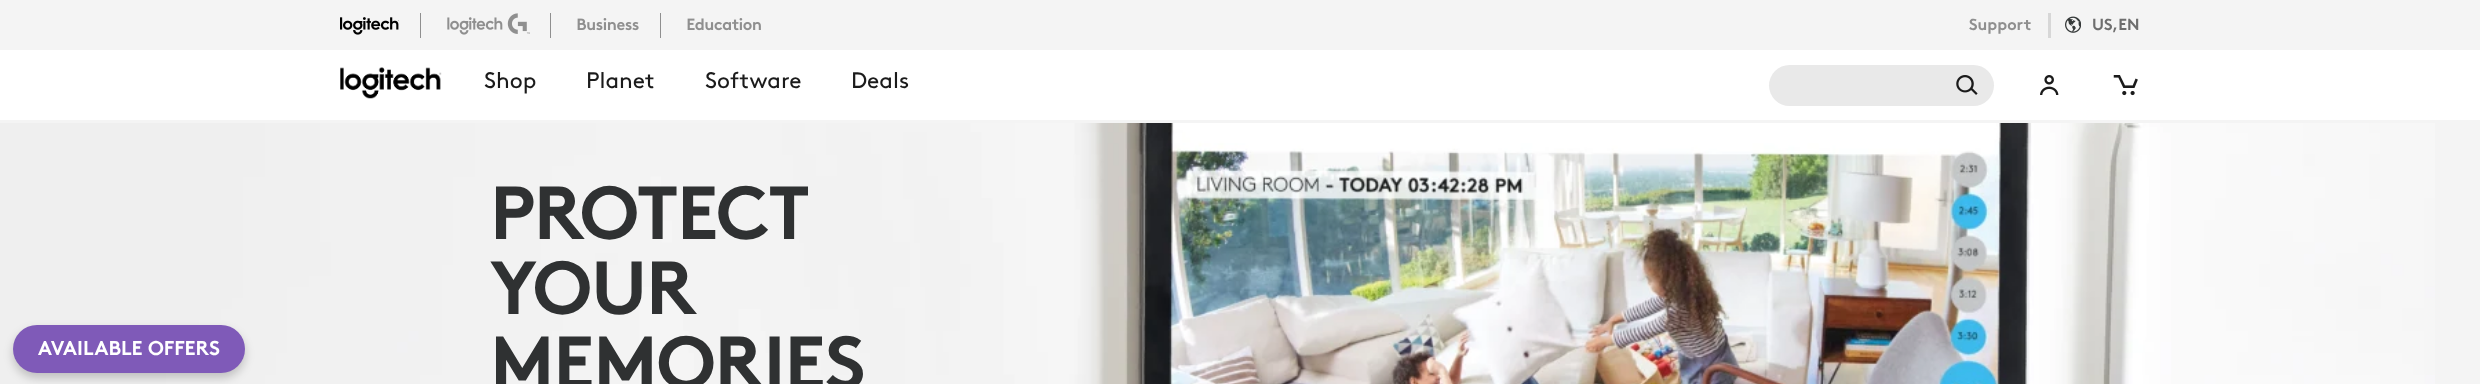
<!DOCTYPE html>
<meta charset="utf-8">
<style>body { margin: 0 } canvas { display: block }</style>
<canvas id="canvas" width="2480" height="384"></canvas>
<img id="img1" src="img_01.png" hidden>
<img id="img2" src="img_02.png" hidden>
<img id="img3" src="img_03.png" hidden>
<img id="img4" src="img_04.png" hidden>
<img id="img5" src="img_05.png" hidden>
<img id="img6" src="img_06.png" hidden>
<img id="img7" src="img_07.png" hidden>
<img id="img8" src="img_08.png" hidden>
<img id="img9" src="img_09.png" hidden>
<img id="img10" src="img_10.png" hidden>
<script>
window.onload = function () {
	const canvas = document.getElementById("canvas");
	const ctx = canvas.getContext("2d");
	ctx.miterLimit = 4;
	ctx.fontKerning = "normal";
	function txt(s, x, y) {
		ctx.fillText(s, x, y);
	}
	function fill(x, y, w, h) {
		ctx.fillRect(x, y, w, h);
	}
	function round(x, y, w, h, r) {
		ctx.beginPath();
		ctx.roundRect(x, y, w, h, r);
		ctx.fill();
	}
	function img(id, x, y, w, h) {
		ctx.drawImage(document.getElementById(id), x, y, w, h);
	}

	ctx.fillStyle = "#F4F4F4";
	fill(0, 0, 2480, 384);
	ctx.fillStyle = "#FFFFFF";
	fill(0, 50, 2480, 70);
	ctx.fillStyle = "#8F8F8F";
	fill(420, 13, 1, 25);
	img("img1", 340, 17, 59, 18);
	fill(550, 13, 1, 25);
	img("img2", 447, 13, 83, 22);
	fill(660, 13, 1, 25);
	img("img3", 577, 18, 62, 13);
	img("img4", 687, 18, 74, 13);
	ctx.fillStyle = "#D7D7D7";
	fill(2048, 13, 3, 25);
	img("img5", 2065, 16, 16, 17);
	img("img6", 340, 67, 102, 32);
	ctx.fillStyle = "#E9E9E9";
	round(1769, 65, 225, 41, 20.5);
	img("img7", 1956, 75, 22, 20);
	img("img8", 2040, 75, 19, 20);
	img("img9", 2113, 75, 25, 21);
	img("img10", 0, 123, 2435, 261);
	ctx.fillStyle = "rgba(0, 0, 0, 0.2)";
	ctx.filter = "blur(5px)";
	ctx.beginPath();
	ctx.roundRect(13, 330, 232, 48, 24);
	ctx.fill();
	ctx.filter = "none";
	ctx.fillStyle = "#7F5AB8";
	round(13, 325, 232, 48, 24);
	ctx.font = "bold 16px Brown";
	ctx.fillStyle = "#8F8F8F";
	txt("Support", 1969, 30);
	ctx.fillStyle = "#6E6E6E";
	txt("US,EN", 2092, 30);
	ctx.font = "22.5px Brown";
	ctx.fillStyle = "#1B1B1B";
	txt("Shop", 484, 88);
	txt("Planet", 586, 88);
	txt("Software", 705, 88);
	txt("Deals", 851, 88);
	ctx.font = "bold 20px Brown";
	ctx.fillStyle = "#FFFFFF";
	txt("AVAILABLE OFFERS", 38, 355);
	ctx.letterSpacing = "-1.25px";
	ctx.font = "bold 75px Brown";
	ctx.fillStyle = "#2F3132";
	txt("PROTECT", 490, 239);
	txt("YOUR", 490, 314);
	txt("MEMORIES", 490, 389);
};
</script>
